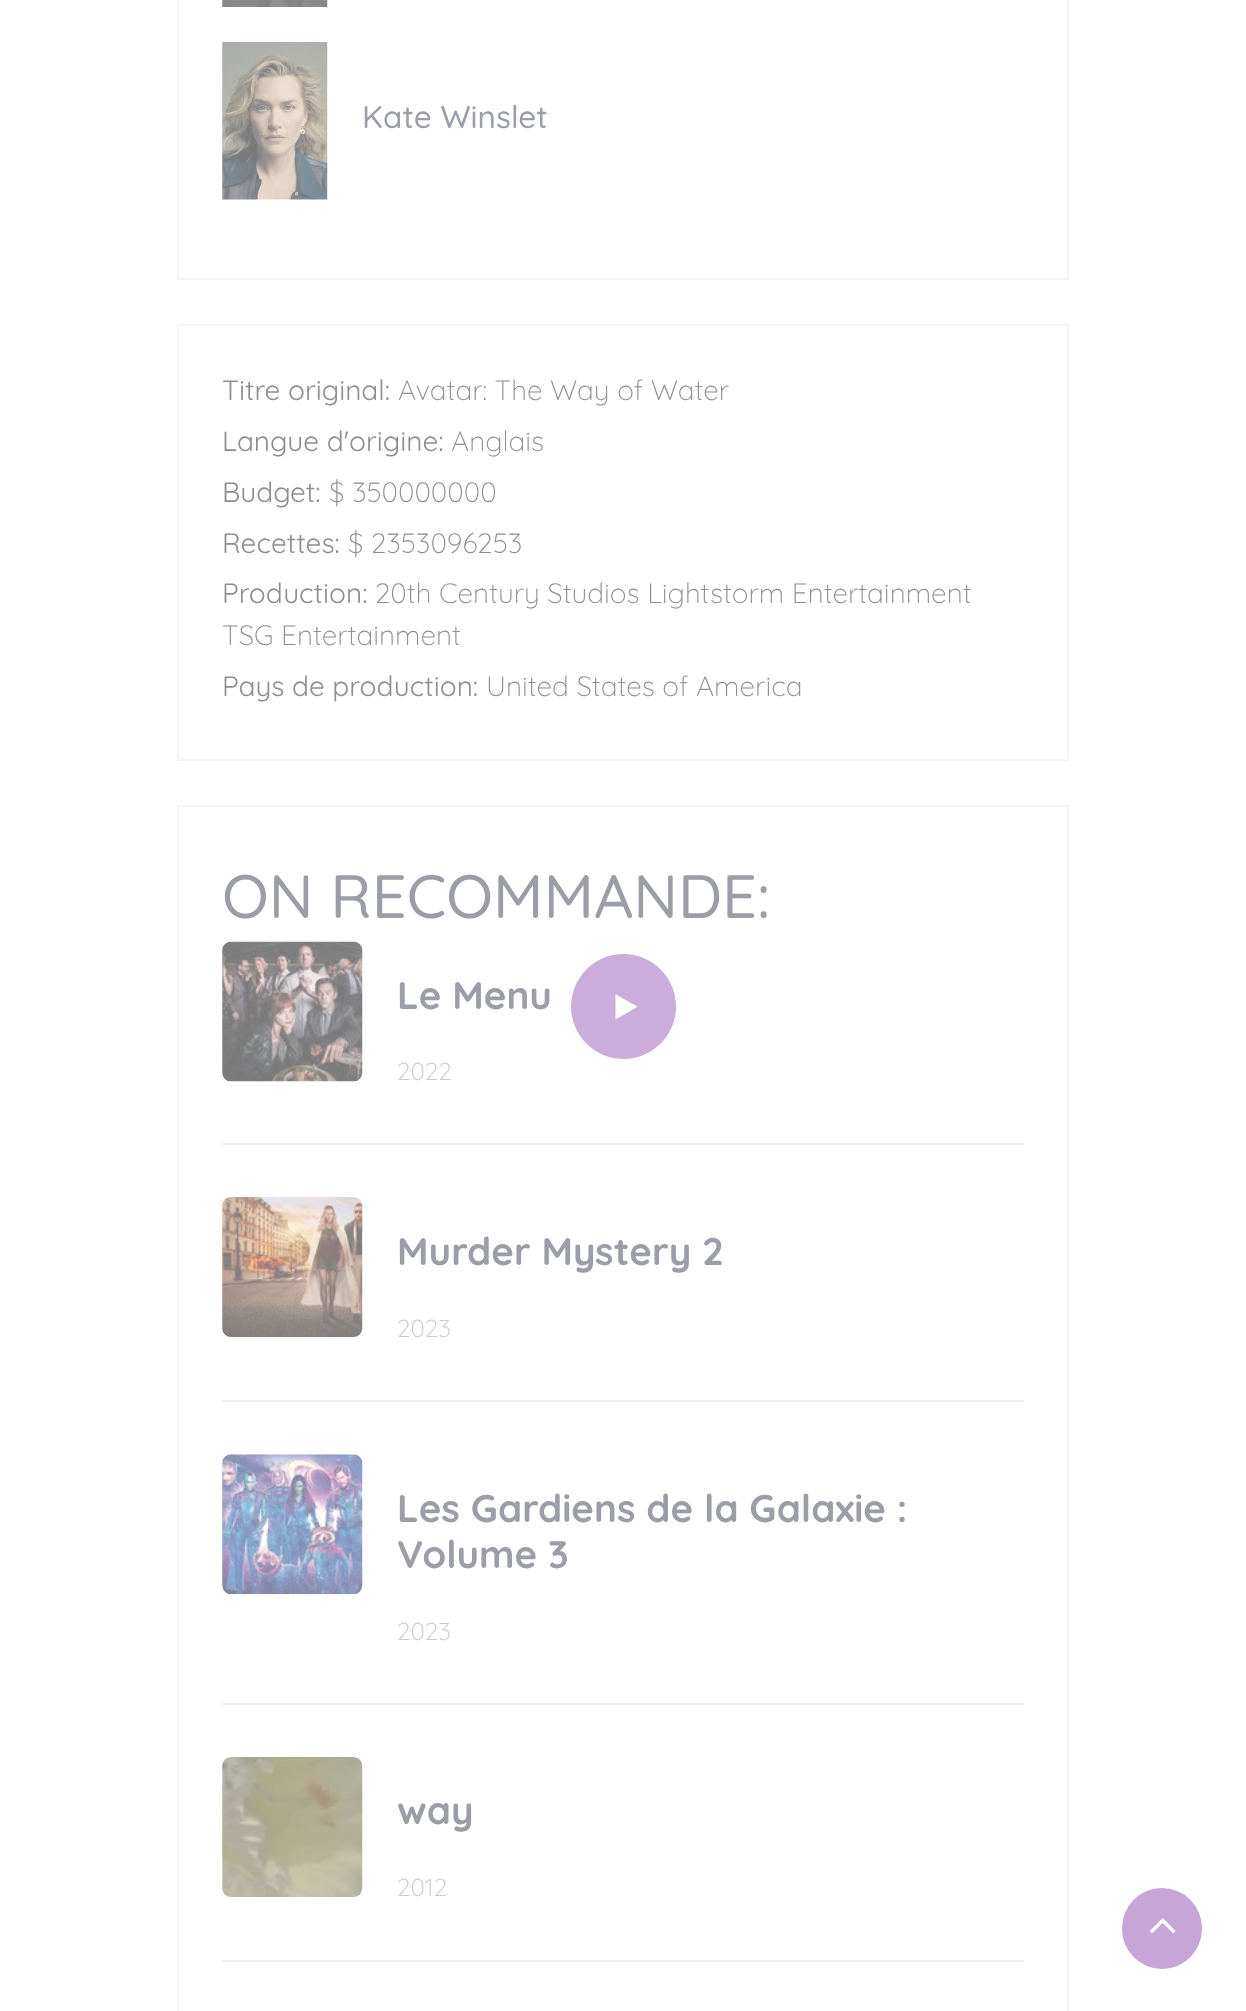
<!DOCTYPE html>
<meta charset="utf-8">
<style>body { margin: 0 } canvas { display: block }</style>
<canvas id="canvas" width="1246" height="2011"></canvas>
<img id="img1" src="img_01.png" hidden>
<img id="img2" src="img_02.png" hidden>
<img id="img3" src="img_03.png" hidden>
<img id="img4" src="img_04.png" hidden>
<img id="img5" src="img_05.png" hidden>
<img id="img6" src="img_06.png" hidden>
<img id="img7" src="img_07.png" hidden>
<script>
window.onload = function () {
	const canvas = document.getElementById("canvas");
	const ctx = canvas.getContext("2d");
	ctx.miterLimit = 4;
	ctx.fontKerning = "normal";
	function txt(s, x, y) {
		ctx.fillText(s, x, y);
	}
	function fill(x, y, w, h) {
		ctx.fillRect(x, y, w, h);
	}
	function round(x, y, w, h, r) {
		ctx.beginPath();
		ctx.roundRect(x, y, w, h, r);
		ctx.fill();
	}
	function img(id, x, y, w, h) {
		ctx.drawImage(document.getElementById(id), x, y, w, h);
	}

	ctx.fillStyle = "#FFFFFF";
	fill(0, 0, 1246, 2011);
	ctx.strokeStyle = "#F5F5F5";
	ctx.lineWidth = 2;
	ctx.strokeRect(178, -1, 890, 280);
	img("img1", 222, 0, 106, 7);
	img("img2", 222, 42, 106, 158);
	ctx.strokeRect(178, 325, 890, 435);
	ctx.strokeRect(178, 806, 890, 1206);
	ctx.fillStyle = "#F0F0F0";
	fill(222, 1143, 802, 2);
	img("img3", 222, 941, 141, 141);
	fill(222, 1400, 802, 2);
	img("img4", 222, 1197, 141, 140);
	fill(222, 1703, 802, 2);
	img("img5", 222, 1454, 141, 141);
	fill(222, 1960, 802, 2);
	img("img6", 222, 1757, 141, 140);
	ctx.fillStyle = "#CBACDB";
	ctx.beginPath();
	ctx.arc(623.5, 1006.5, 52.5, 0, Math.PI * 2);
	ctx.fill();
	ctx.fillStyle = "#FFFFFF";
	ctx.beginPath();
	ctx.moveTo(637, 1007);
	ctx.lineTo(620, 1017);
	ctx.bezierCurveTo(619.5, 1017, 616, 1019.5, 615.5, 1018.5);
	ctx.lineTo(615.5, 995);
	ctx.lineTo(616, 994.5);
	ctx.lineTo(633.5, 1004.5);
	ctx.lineTo(637.5, 1006.5);
	ctx.closePath();
	ctx.fill();
	ctx.fillStyle = "#C7A5D7";
	round(1122, 1888, 80, 81, 40);
	img("img7", 1150, 1918, 26, 16);
	ctx.font = "500 31.5px Quicksand";
	ctx.fillStyle = "#9B9EA7";
	txt("Kate Winslet", 362, 128);
	ctx.font = "28px Quicksand";
	ctx.fillStyle = "#8C8E90";
	txt("Titre original:", 222, 400);
	ctx.font = "300 28px Quicksand";
	txt("Avatar: The Way of Water", 398, 400);
	ctx.font = "28px Quicksand";
	txt("Langue d'origine:", 222, 451);
	ctx.font = "300 28px Quicksand";
	txt("Anglais", 451, 451);
	ctx.font = "28px Quicksand";
	txt("Budget:", 222, 502);
	ctx.font = "300 28px Quicksand";
	txt("$ 350000000", 329, 502);
	ctx.font = "28px Quicksand";
	txt("Recettes:", 222, 553);
	ctx.font = "300 28px Quicksand";
	txt("$ 2353096253", 348, 553);
	ctx.font = "28px Quicksand";
	txt("Production:", 222, 603);
	ctx.font = "300 28px Quicksand";
	txt("20th Century Studios Lightstorm Entertainment", 375, 603);
	txt("TSG Entertainment", 222, 645);
	ctx.font = "28px Quicksand";
	txt("Pays de production:", 222, 696);
	ctx.font = "300 28px Quicksand";
	txt("United States of America", 486, 696);
	ctx.font = "500 61.25px Quicksand";
	ctx.fillStyle = "#9B9EA7";
	txt("ON RECOMMANDE:", 222, 918);
	ctx.font = "bold 38.5px Quicksand";
	txt("Le Menu", 397, 1009);
	ctx.font = "300 24.5px Quicksand";
	ctx.fillStyle = "#C4C9D4";
	txt("2022", 397, 1080);
	ctx.font = "bold 38.5px Quicksand";
	ctx.fillStyle = "#9B9EA7";
	txt("Murder Mystery 2", 397, 1265);
	ctx.font = "300 24.5px Quicksand";
	ctx.fillStyle = "#C4C9D4";
	txt("2023", 397, 1337);
	ctx.font = "bold 38.5px Quicksand";
	ctx.fillStyle = "#9B9EA7";
	txt("Les Gardiens de la Galaxie :", 397, 1522);
	txt("Volume 3", 397, 1568);
	ctx.font = "300 24.5px Quicksand";
	ctx.fillStyle = "#C4C9D4";
	txt("2023", 397, 1640);
	ctx.font = "bold 38.5px Quicksand";
	ctx.fillStyle = "#9B9EA7";
	txt("way", 397, 1824);
	ctx.font = "300 24.5px Quicksand";
	ctx.fillStyle = "#C4C9D4";
	txt("2012", 397, 1896);
};
</script>
